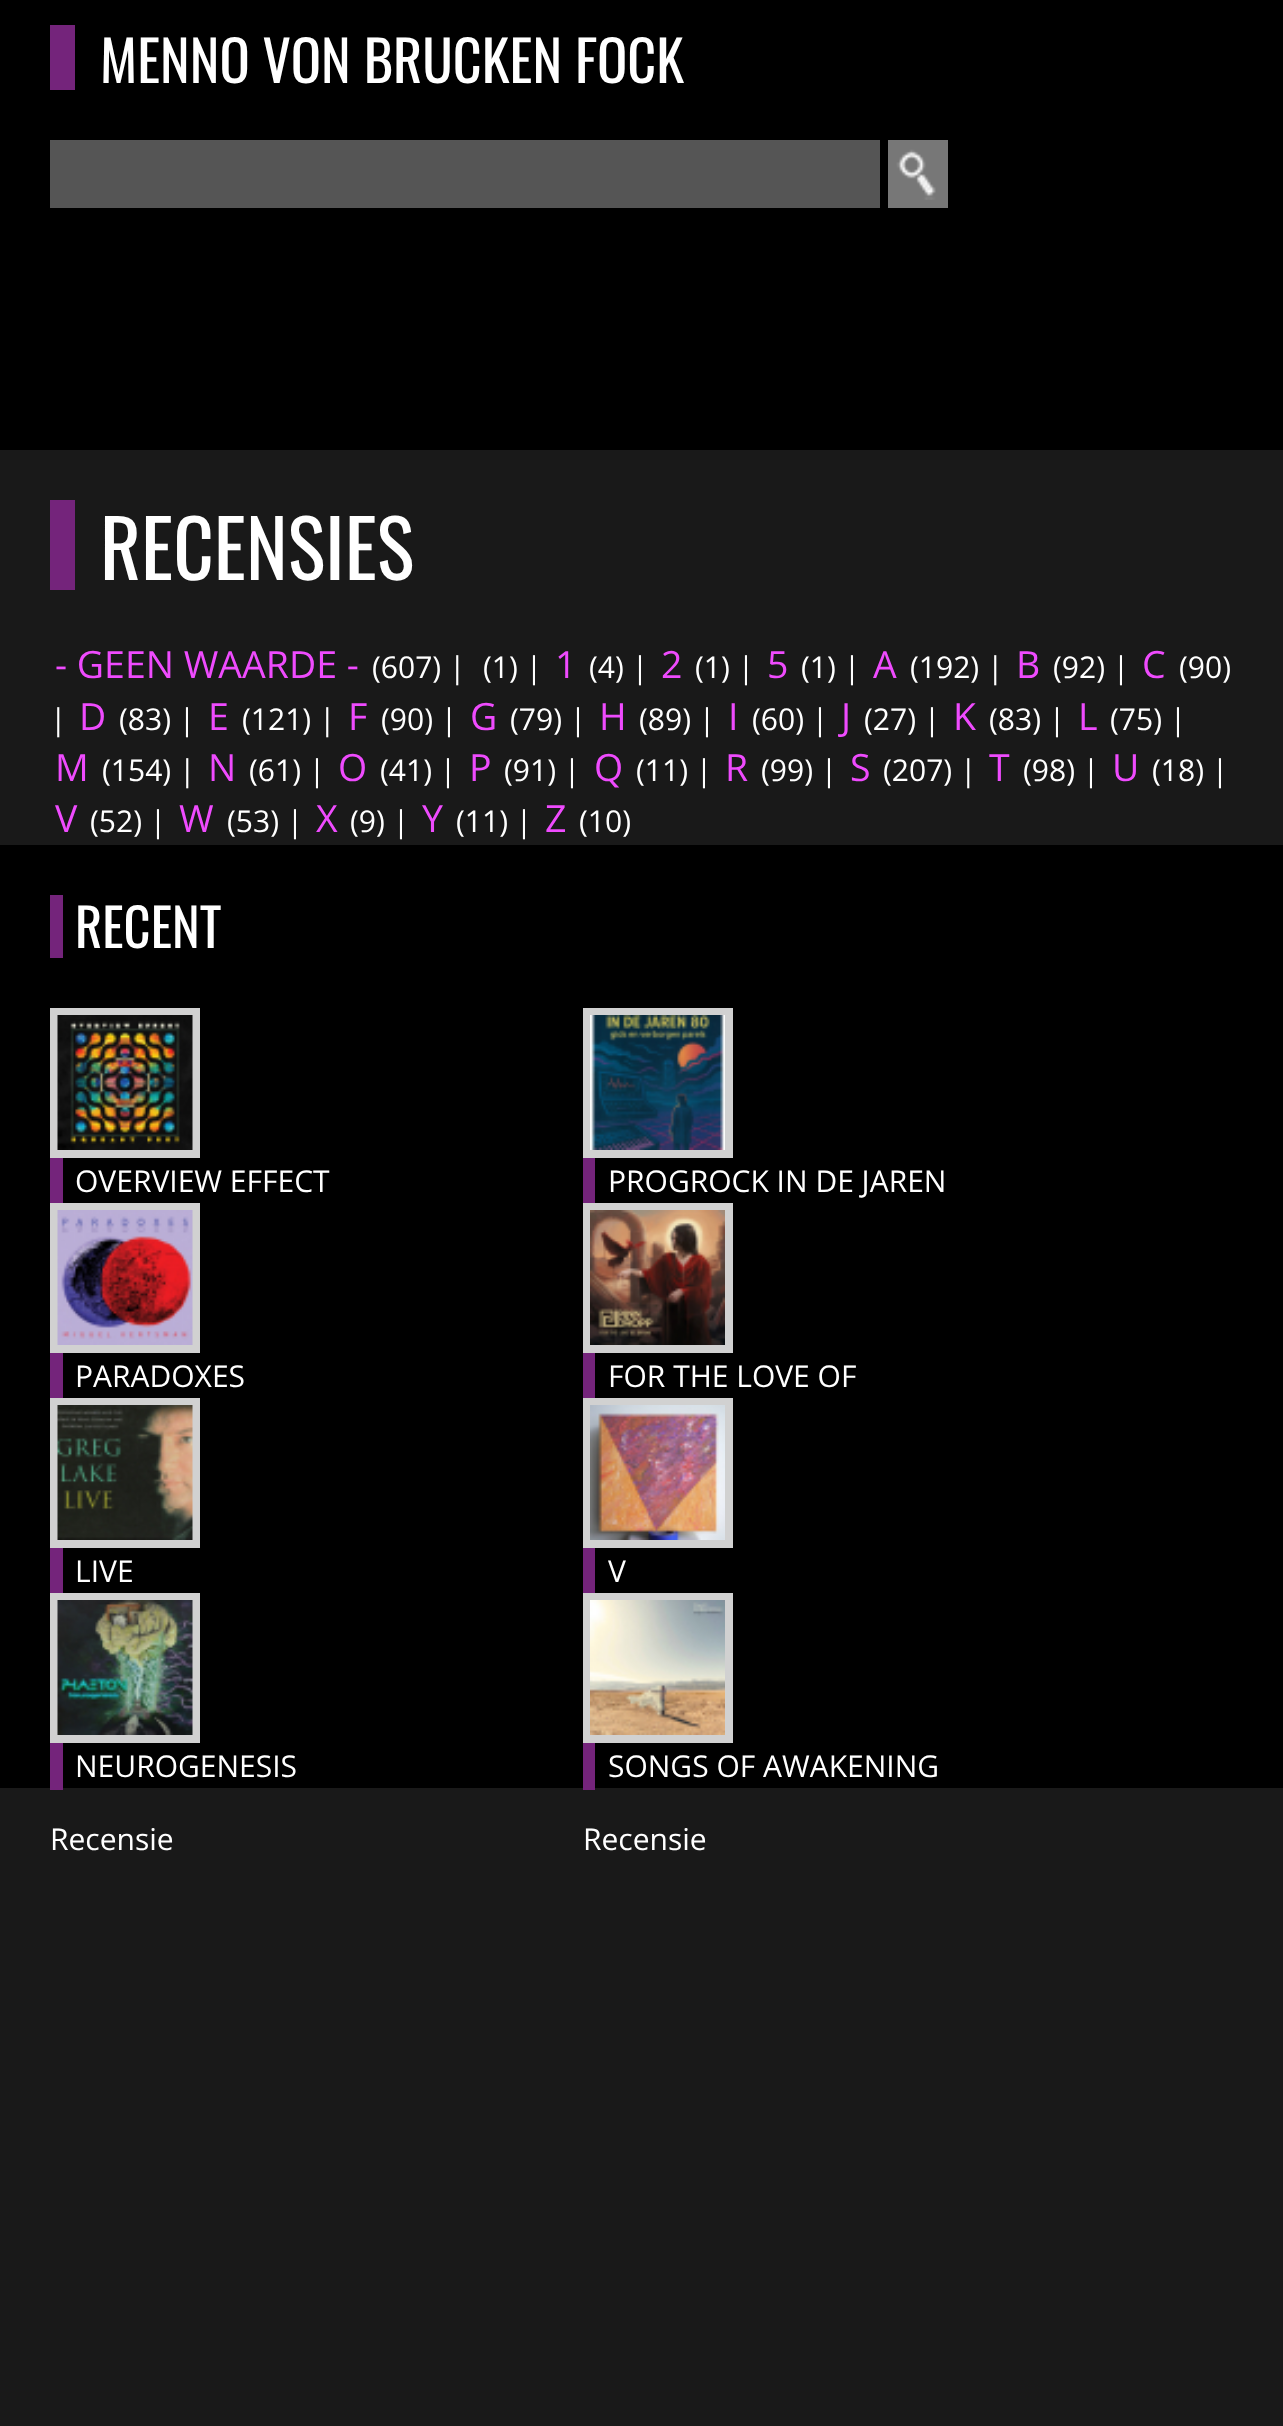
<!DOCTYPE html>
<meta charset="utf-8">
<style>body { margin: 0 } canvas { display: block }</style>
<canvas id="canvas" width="1283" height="2426"></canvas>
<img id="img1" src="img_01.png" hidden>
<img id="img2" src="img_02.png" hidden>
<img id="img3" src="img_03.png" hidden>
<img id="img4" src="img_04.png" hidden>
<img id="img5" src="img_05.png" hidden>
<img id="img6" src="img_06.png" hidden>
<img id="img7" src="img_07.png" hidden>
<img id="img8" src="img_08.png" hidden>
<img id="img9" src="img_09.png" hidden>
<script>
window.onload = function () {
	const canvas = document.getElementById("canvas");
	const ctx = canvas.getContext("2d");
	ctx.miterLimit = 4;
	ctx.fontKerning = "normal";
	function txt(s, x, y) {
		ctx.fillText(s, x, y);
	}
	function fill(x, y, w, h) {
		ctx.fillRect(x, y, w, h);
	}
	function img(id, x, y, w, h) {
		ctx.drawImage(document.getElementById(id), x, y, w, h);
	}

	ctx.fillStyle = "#191919";
	fill(0, 0, 1283, 2426);
	ctx.fillStyle = "#000000";
	fill(0, 0, 1283, 450);
	ctx.fillStyle = "#74247B";
	fill(50, 25, 25, 65);
	ctx.fillStyle = "#555555";
	fill(50, 140, 830, 68);
	ctx.fillStyle = "#777777";
	fill(888, 140, 60, 68);
	img("img1", 896, 149, 40, 51);
	ctx.fillStyle = "#74247B";
	fill(50, 500, 25, 90);
	ctx.fillStyle = "#000000";
	fill(0, 845, 1283, 943);
	ctx.fillStyle = "#74247B";
	fill(50, 895, 13, 63);
	ctx.strokeStyle = "#D1D1D1";
	ctx.lineWidth = 8;
	ctx.strokeRect(54, 1012, 142, 142);
	img("img2", 57, 1015, 136, 135);
	fill(50, 1158, 13, 45);
	ctx.strokeRect(587, 1012, 142, 142);
	img("img3", 590, 1015, 135, 135);
	fill(583, 1158, 12, 45);
	ctx.strokeRect(54, 1207, 142, 142);
	img("img4", 57, 1210, 136, 135);
	fill(50, 1353, 13, 45);
	ctx.strokeRect(587, 1207, 142, 142);
	img("img5", 590, 1210, 135, 135);
	fill(583, 1353, 12, 45);
	ctx.strokeRect(54, 1402, 142, 142);
	img("img6", 57, 1405, 136, 135);
	fill(50, 1548, 13, 45);
	ctx.strokeRect(587, 1402, 142, 142);
	img("img7", 590, 1405, 135, 135);
	fill(583, 1548, 12, 45);
	ctx.strokeRect(54, 1597, 142, 142);
	img("img8", 57, 1600, 136, 135);
	fill(50, 1743, 13, 47);
	ctx.strokeRect(587, 1597, 142, 142);
	img("img9", 590, 1600, 135, 135);
	fill(583, 1743, 12, 47);
	ctx.font = "56.25px Oswald";
	ctx.fillStyle = "#FFFFFF";
	txt("MENNO VON BRUCKEN FOCK", 100, 83);
	ctx.font = "79px Oswald";
	txt("RECENSIES", 100, 580);
	ctx.font = "37.5px Open Sans";
	ctx.fillStyle = "#EF4BFE";
	txt("- GEEN WAARDE -", 55, 678);
	ctx.font = "30px Open Sans";
	ctx.fillStyle = "#FFFFFF";
	txt("(607) |", 372, 678);
	txt("(1) |", 483, 678);
	ctx.font = "37.5px Open Sans";
	ctx.fillStyle = "#EF4BFE";
	txt("1", 555, 678);
	ctx.font = "30px Open Sans";
	ctx.fillStyle = "#FFFFFF";
	txt("(4) |", 589, 678);
	ctx.font = "37.5px Open Sans";
	ctx.fillStyle = "#EF4BFE";
	txt("2", 661, 678);
	ctx.font = "30px Open Sans";
	ctx.fillStyle = "#FFFFFF";
	txt("(1) |", 695, 678);
	ctx.font = "37.5px Open Sans";
	ctx.fillStyle = "#EF4BFE";
	txt("5", 767, 678);
	ctx.font = "30px Open Sans";
	ctx.fillStyle = "#FFFFFF";
	txt("(1) |", 801, 678);
	ctx.font = "37.5px Open Sans";
	ctx.fillStyle = "#EF4BFE";
	txt("A", 873, 678);
	ctx.font = "30px Open Sans";
	ctx.fillStyle = "#FFFFFF";
	txt("(192) |", 910, 678);
	ctx.font = "37.5px Open Sans";
	ctx.fillStyle = "#EF4BFE";
	txt("B", 1016, 678);
	ctx.font = "30px Open Sans";
	ctx.fillStyle = "#FFFFFF";
	txt("(92) |", 1053, 678);
	ctx.font = "37.5px Open Sans";
	ctx.fillStyle = "#EF4BFE";
	txt("C", 1142, 678);
	ctx.font = "30px Open Sans";
	ctx.fillStyle = "#FFFFFF";
	txt("(90)", 1179, 678);
	txt("|", 50, 730);
	ctx.font = "37.5px Open Sans";
	ctx.fillStyle = "#EF4BFE";
	txt("D", 79, 730);
	ctx.font = "30px Open Sans";
	ctx.fillStyle = "#FFFFFF";
	txt("(83) |", 119, 730);
	ctx.font = "37.5px Open Sans";
	ctx.fillStyle = "#EF4BFE";
	txt("E", 208, 730);
	ctx.font = "30px Open Sans";
	ctx.fillStyle = "#FFFFFF";
	txt("(121) |", 242, 730);
	ctx.font = "37.5px Open Sans";
	ctx.fillStyle = "#EF4BFE";
	txt("F", 348, 730);
	ctx.font = "30px Open Sans";
	ctx.fillStyle = "#FFFFFF";
	txt("(90) |", 381, 730);
	ctx.font = "37.5px Open Sans";
	ctx.fillStyle = "#EF4BFE";
	txt("G", 470, 730);
	ctx.font = "30px Open Sans";
	ctx.fillStyle = "#FFFFFF";
	txt("(79) |", 510, 730);
	ctx.font = "37.5px Open Sans";
	ctx.fillStyle = "#EF4BFE";
	txt("H", 599, 730);
	ctx.font = "30px Open Sans";
	ctx.fillStyle = "#FFFFFF";
	txt("(89) |", 639, 730);
	ctx.font = "37.5px Open Sans";
	ctx.fillStyle = "#EF4BFE";
	txt("I", 728, 730);
	ctx.font = "30px Open Sans";
	ctx.fillStyle = "#FFFFFF";
	txt("(60) |", 752, 730);
	ctx.font = "37.5px Open Sans";
	ctx.fillStyle = "#EF4BFE";
	txt("J", 841, 730);
	ctx.font = "30px Open Sans";
	ctx.fillStyle = "#FFFFFF";
	txt("(27) |", 864, 730);
	ctx.font = "37.5px Open Sans";
	ctx.fillStyle = "#EF4BFE";
	txt("K", 953, 730);
	ctx.font = "30px Open Sans";
	ctx.fillStyle = "#FFFFFF";
	txt("(83) |", 989, 730);
	ctx.font = "37.5px Open Sans";
	ctx.fillStyle = "#EF4BFE";
	txt("L", 1078, 730);
	ctx.font = "30px Open Sans";
	ctx.fillStyle = "#FFFFFF";
	txt("(75) |", 1110, 730);
	ctx.font = "37.5px Open Sans";
	ctx.fillStyle = "#EF4BFE";
	txt("M", 55, 781);
	ctx.font = "30px Open Sans";
	ctx.fillStyle = "#FFFFFF";
	txt("(154) |", 102, 781);
	ctx.font = "37.5px Open Sans";
	ctx.fillStyle = "#EF4BFE";
	txt("N", 208, 781);
	ctx.font = "30px Open Sans";
	ctx.fillStyle = "#FFFFFF";
	txt("(61) |", 249, 781);
	ctx.font = "37.5px Open Sans";
	ctx.fillStyle = "#EF4BFE";
	txt("O", 338, 781);
	ctx.font = "30px Open Sans";
	ctx.fillStyle = "#FFFFFF";
	txt("(41) |", 380, 781);
	ctx.font = "37.5px Open Sans";
	ctx.fillStyle = "#EF4BFE";
	txt("P", 469, 781);
	ctx.font = "30px Open Sans";
	ctx.fillStyle = "#FFFFFF";
	txt("(91) |", 504, 781);
	ctx.font = "37.5px Open Sans";
	ctx.fillStyle = "#EF4BFE";
	txt("Q", 594, 781);
	ctx.font = "30px Open Sans";
	ctx.fillStyle = "#FFFFFF";
	txt("(11) |", 636, 781);
	ctx.font = "37.5px Open Sans";
	ctx.fillStyle = "#EF4BFE";
	txt("R", 725, 781);
	ctx.font = "30px Open Sans";
	ctx.fillStyle = "#FFFFFF";
	txt("(99) |", 761, 781);
	ctx.font = "37.5px Open Sans";
	ctx.fillStyle = "#EF4BFE";
	txt("S", 850, 781);
	ctx.font = "30px Open Sans";
	ctx.fillStyle = "#FFFFFF";
	txt("(207) |", 883, 781);
	ctx.font = "37.5px Open Sans";
	ctx.fillStyle = "#EF4BFE";
	txt("T", 989, 781);
	ctx.font = "30px Open Sans";
	ctx.fillStyle = "#FFFFFF";
	txt("(98) |", 1023, 781);
	ctx.font = "37.5px Open Sans";
	ctx.fillStyle = "#EF4BFE";
	txt("U", 1112, 781);
	ctx.font = "30px Open Sans";
	ctx.fillStyle = "#FFFFFF";
	txt("(18) |", 1152, 781);
	ctx.font = "37.5px Open Sans";
	ctx.fillStyle = "#EF4BFE";
	txt("V", 55, 832);
	ctx.font = "30px Open Sans";
	ctx.fillStyle = "#FFFFFF";
	txt("(52) |", 90, 832);
	ctx.font = "37.5px Open Sans";
	ctx.fillStyle = "#EF4BFE";
	txt("W", 179, 832);
	ctx.font = "30px Open Sans";
	ctx.fillStyle = "#FFFFFF";
	txt("(53) |", 227, 832);
	ctx.font = "37.5px Open Sans";
	ctx.fillStyle = "#EF4BFE";
	txt("X", 316, 832);
	ctx.font = "30px Open Sans";
	ctx.fillStyle = "#FFFFFF";
	txt("(9) |", 350, 832);
	ctx.font = "37.5px Open Sans";
	ctx.fillStyle = "#EF4BFE";
	txt("Y", 422, 832);
	ctx.font = "30px Open Sans";
	ctx.fillStyle = "#FFFFFF";
	txt("(11) |", 456, 832);
	ctx.font = "37.5px Open Sans";
	ctx.fillStyle = "#EF4BFE";
	txt("Z", 545, 832);
	ctx.font = "30px Open Sans";
	ctx.fillStyle = "#FFFFFF";
	txt("(10)", 579, 832);
	ctx.font = "52.5px Oswald";
	txt("RECENT", 75, 948);
	ctx.font = "30px Open Sans";
	txt("OVERVIEW EFFECT", 75, 1192);
	txt("PROGROCK IN DE JAREN", 608, 1192);
	txt("PARADOXES", 75, 1387);
	txt("FOR THE LOVE OF", 608, 1387);
	txt("LIVE", 75, 1582);
	txt("V", 608, 1582);
	txt("NEUROGENESIS", 75, 1777);
	txt("Recensie", 50, 1850);
	txt("SONGS OF AWAKENING", 608, 1777);
	txt("Recensie", 583, 1850);
};
</script>
